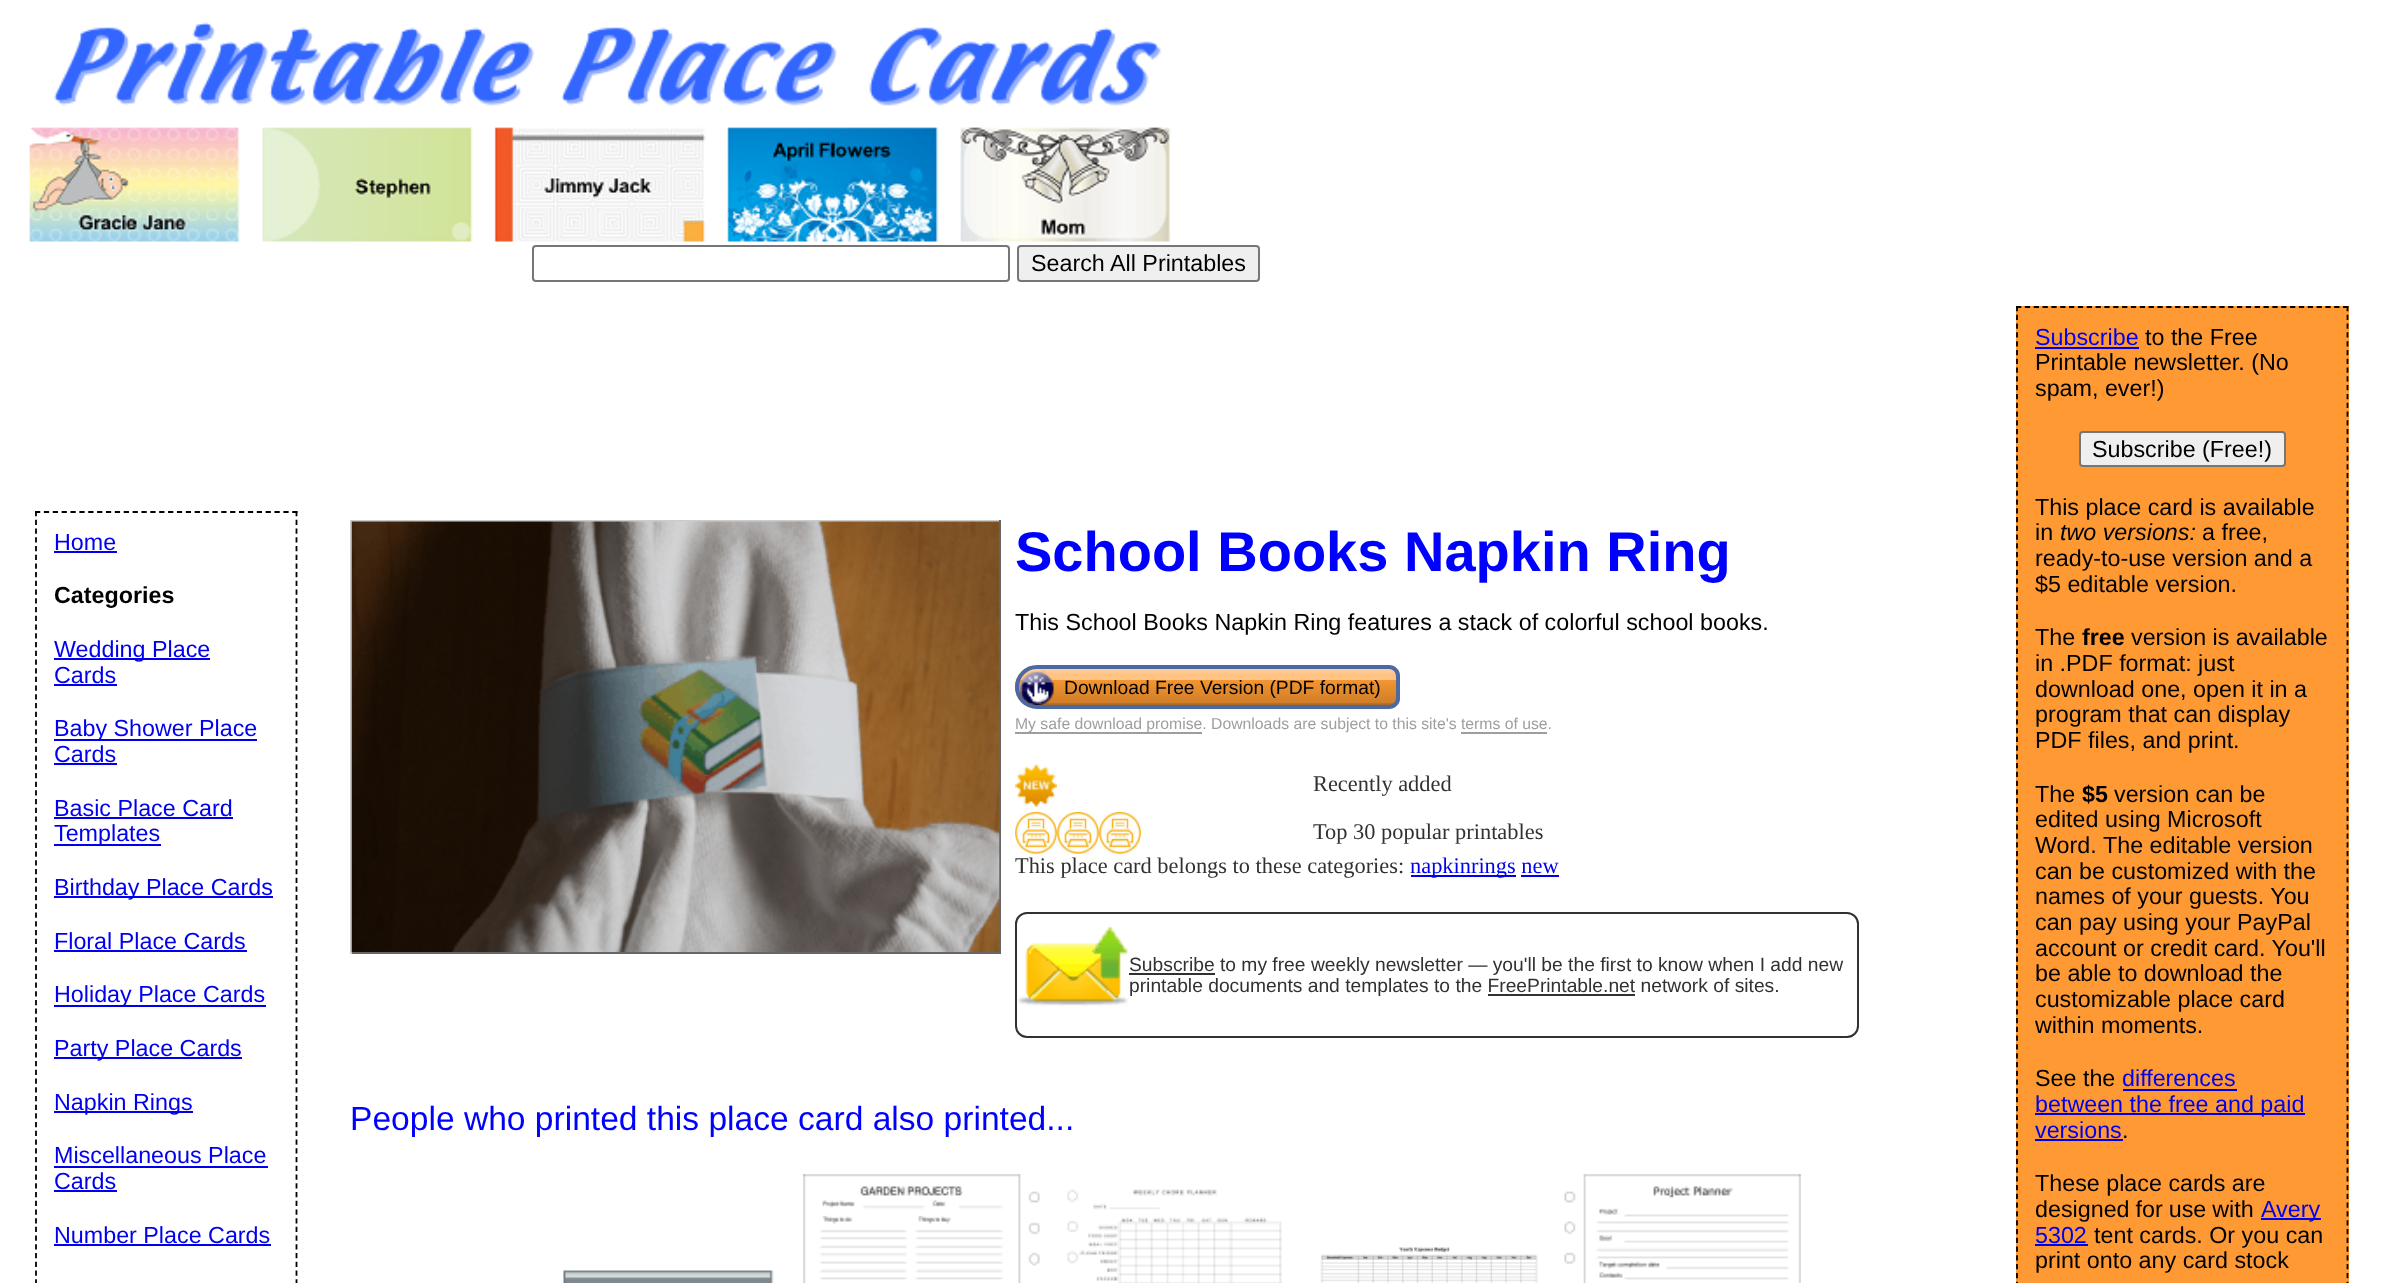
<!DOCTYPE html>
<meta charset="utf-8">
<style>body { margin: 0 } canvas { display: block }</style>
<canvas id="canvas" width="2382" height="1283"></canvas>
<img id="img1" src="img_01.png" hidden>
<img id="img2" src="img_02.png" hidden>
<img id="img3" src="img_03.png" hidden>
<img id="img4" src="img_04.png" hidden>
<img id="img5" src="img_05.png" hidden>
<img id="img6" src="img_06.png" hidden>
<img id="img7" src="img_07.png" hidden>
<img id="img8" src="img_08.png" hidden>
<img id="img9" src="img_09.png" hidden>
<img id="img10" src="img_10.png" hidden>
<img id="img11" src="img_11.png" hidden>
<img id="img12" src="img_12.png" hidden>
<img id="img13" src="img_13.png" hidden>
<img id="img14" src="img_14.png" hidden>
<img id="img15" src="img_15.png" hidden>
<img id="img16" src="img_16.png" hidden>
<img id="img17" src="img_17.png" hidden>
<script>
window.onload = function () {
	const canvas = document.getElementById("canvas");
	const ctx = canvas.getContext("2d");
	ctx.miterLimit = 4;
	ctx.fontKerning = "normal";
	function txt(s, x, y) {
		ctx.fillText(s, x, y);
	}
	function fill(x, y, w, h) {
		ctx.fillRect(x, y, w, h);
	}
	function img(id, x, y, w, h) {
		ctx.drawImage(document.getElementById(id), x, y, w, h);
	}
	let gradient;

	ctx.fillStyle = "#FFFFFF";
	fill(0, 0, 2382, 1283);
	img("img1", 54, 22, 1107, 84);
	img("img2", 29, 127, 211, 115);
	img("img3", 262, 127, 211, 115);
	img("img4", 494, 127, 212, 115);
	img("img5", 727, 127, 212, 115);
	img("img6", 960, 127, 211, 115);
	ctx.beginPath();
	ctx.roundRect(533, 246, 476, 35, 3);
	ctx.strokeStyle = "#767676";
	ctx.lineWidth = 2;
	ctx.stroke();
	ctx.fillStyle = "#EFEFEF";
	ctx.beginPath();
	ctx.roundRect(1018, 246, 241, 35, 3);
	ctx.fill();
	ctx.stroke();
	ctx.beginPath();
	ctx.moveTo(35, 512);
	ctx.lineTo(297.5, 512);
	ctx.strokeStyle = "#000000";
	ctx.lineWidth = 1.8;
	ctx.setLineDash([5.25, 3.62]);
	ctx.stroke();
	ctx.beginPath();
	ctx.moveTo(296.5, 511);
	ctx.lineTo(296.5, 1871);
	ctx.setLineDash([5.25, 3.48]);
	ctx.stroke();
	ctx.beginPath();
	ctx.moveTo(36, 511);
	ctx.lineTo(36, 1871);
	ctx.stroke();
	ctx.fillStyle = "#0000EE";
	fill(54, 551, 63, 2);
	fill(54, 658, 156, 2);
	fill(54, 684, 63, 2);
	fill(54, 739, 203, 2);
	fill(54, 763, 63, 2);
	fill(54, 817, 179, 2);
	fill(54, 844, 107, 2);
	fill(54, 896, 219, 2);
	fill(54, 950, 193, 2);
	fill(54, 1005, 212, 2);
	fill(54, 1057, 188, 2);
	fill(54, 1111, 139, 2);
	fill(54, 1166, 214, 2);
	fill(54, 1190, 63, 2);
	fill(54, 1244, 217, 2);
	ctx.fillStyle = "#CCCCCC";
	fill(350, 520, 651, 2);
	ctx.fillStyle = "#666666";
	fill(999, 520, 2, 434);
	fill(350, 952, 651, 2);
	ctx.fillStyle = "#CCCCCC";
	fill(350, 520, 2, 434);
	img("img7", 351, 521, 649, 431);
	ctx.save();
	ctx.beginPath();
	ctx.roundRect(1015, 665, 385, 44, [22, 11, 11, 22]);
	ctx.clip();
	gradient = ctx.createLinearGradient(1208, 669, 1208, 705);
	gradient.addColorStop(0, "#FFD09E");
	gradient.addColorStop(0.15, "#FFC384");
	gradient.addColorStop(0.3, "#FFC384");
	gradient.addColorStop(0.31, "#F49530");
	gradient.addColorStop(0.94, "#D07E29");
	gradient.addColorStop(0.95, "#BF7425");
	gradient.addColorStop(1, "#A46420");
	ctx.fillStyle = gradient;
	fill(1015, 669, 385, 36);
	ctx.restore();
	ctx.beginPath();
	ctx.roundRect(1017, 667, 381, 40, [20, 9, 9, 20]);
	ctx.strokeStyle = "#4C69A4";
	ctx.lineWidth = 4;
	ctx.setLineDash([]);
	ctx.stroke();
	img("img8", 1020, 670, 34, 36);
	ctx.fillStyle = "#9E9E9E";
	fill(1015, 732, 187, 2);
	fill(1461, 732, 86, 2);
	img("img9", 1015, 764, 42, 43);
	img("img10", 1015, 812, 42, 42);
	img("img10", 1057, 812, 42, 42);
	img("img11", 1099, 812, 42, 42);
	ctx.fillStyle = "#0000EE";
	fill(1411, 875, 105, 2);
	fill(1521, 875, 38, 2);
	ctx.beginPath();
	ctx.roundRect(1016, 913, 842, 124, 11);
	ctx.strokeStyle = "#313131";
	ctx.lineWidth = 2;
	ctx.stroke();
	img("img12", 1018, 926, 111, 81);
	ctx.fillStyle = "#313131";
	fill(1129, 973, 86, 2);
	fill(1488, 994, 147, 2);
	img("img13", 563, 1270, 211, 13);
	img("img14", 803, 1174, 237, 109);
	img("img15", 1067, 1189, 215, 94);
	img("img16", 1320, 1247, 218, 36);
	img("img17", 1564, 1174, 237, 109);
	ctx.fillStyle = "#FF9933";
	fill(2016, 306, 333, 977);
	ctx.beginPath();
	ctx.moveTo(2016, 307);
	ctx.lineTo(2348.5, 307);
	ctx.strokeStyle = "#000000";
	ctx.lineWidth = 1.8;
	ctx.setLineDash([5.25, 3.59]);
	ctx.stroke();
	ctx.beginPath();
	ctx.moveTo(2347.5, 306);
	ctx.lineTo(2347.5, 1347.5);
	ctx.setLineDash([5.25, 3.54]);
	ctx.stroke();
	ctx.beginPath();
	ctx.moveTo(2017, 306);
	ctx.lineTo(2017, 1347.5);
	ctx.stroke();
	ctx.fillStyle = "#0000EE";
	fill(2035, 347, 104, 2);
	ctx.fillStyle = "#EFEFEF";
	ctx.beginPath();
	ctx.roundRect(2080, 432, 205, 34, 3);
	ctx.fill();
	ctx.strokeStyle = "#767676";
	ctx.lineWidth = 2;
	ctx.setLineDash([]);
	ctx.stroke();
	ctx.fillStyle = "#0000EE";
	fill(2123, 1089, 114, 2);
	fill(2035, 1113, 270, 2);
	fill(2035, 1139, 88, 2);
	fill(2261, 1218, 60, 2);
	fill(2035, 1244, 53, 2);
	ctx.font = "23.3px Liberation Sans";
	ctx.fillStyle = "#000000";
	txt("Search All Printables", 1031, 271);
	ctx.fillStyle = "#0000EE";
	txt("Home", 54, 550);
	ctx.font = "bold 23.3px Liberation Sans";
	ctx.fillStyle = "#000000";
	txt("Categories", 54, 603);
	ctx.font = "23.3px Liberation Sans";
	ctx.fillStyle = "#0000EE";
	txt("Wedding Place", 54, 657);
	txt("Cards", 54, 683);
	txt("Baby Shower Place", 54, 736);
	txt("Cards", 54, 762);
	txt("Basic Place Card", 54, 816);
	txt("Templates", 54, 841);
	txt("Birthday Place Cards", 54, 895);
	txt("Floral Place Cards", 54, 949);
	txt("Holiday Place Cards", 54, 1002);
	txt("Party Place Cards", 54, 1056);
	txt("Napkin Rings", 54, 1110);
	txt("Miscellaneous Place", 54, 1163);
	txt("Cards", 54, 1189);
	txt("Number Place Cards", 54, 1243);
	ctx.font = "bold 56px Liberation Sans";
	ctx.fillStyle = "#0000FF";
	txt("School Books Napkin Ring", 1015, 571);
	ctx.font = "23.3px Liberation Sans";
	ctx.fillStyle = "#000000";
	txt("This School Books Napkin Ring features a stack of colorful school books.", 1015, 630);
	ctx.font = "19.25px Liberation Sans";
	txt("Download Free Version (PDF format)", 1064, 694);
	ctx.font = "15.75px Liberation Sans";
	ctx.fillStyle = "#9E9E9E";
	txt("My safe download promise. Downloads are subject to this site's terms of use.", 1015, 729);
	ctx.font = "22.4px Liberation Serif";
	ctx.fillStyle = "#313131";
	txt("Recently added", 1313, 791);
	txt("Top 30 popular printables", 1313, 839);
	txt("This place card belongs to these categories:", 1015, 873);
	ctx.fillStyle = "#0000EE";
	txt("napkinrings new", 1410, 873);
	ctx.font = "19.25px Liberation Sans";
	ctx.fillStyle = "#313131";
	txt("Subscribe to my free weekly newsletter — you'll be the first to know when I add new", 1129, 971);
	txt("printable documents and templates to the FreePrintable.net network of sites.", 1129, 992);
	ctx.font = "33.6px Liberation Sans";
	ctx.fillStyle = "#0000FF";
	txt("People who printed this place card also printed...", 350, 1130);
	ctx.font = "23.3px Liberation Sans";
	ctx.fillStyle = "#0000EE";
	txt("Subscribe", 2035, 345);
	ctx.fillStyle = "#000000";
	txt("to the Free", 2145, 345);
	txt("Printable newsletter. (No", 2035, 370);
	txt("spam, ever!)", 2035, 396);
	txt("Subscribe (Free!)", 2092, 457);
	txt("This place card is available", 2035, 515);
	txt("in", 2035, 540);
	ctx.font = "italic 23.3px Liberation Sans";
	txt("two versions:", 2060, 540);
	ctx.font = "23.3px Liberation Sans";
	txt("a free,", 2202, 540);
	txt("ready-to-use version and a", 2035, 566);
	txt("$5 editable version.", 2035, 592);
	txt("The", 2035, 645);
	ctx.font = "bold 23.3px Liberation Sans";
	txt("free", 2082, 645);
	ctx.font = "23.3px Liberation Sans";
	txt("version is available", 2131, 645);
	txt("in .PDF format: just", 2035, 671);
	txt("download one, open it in a", 2035, 697);
	txt("program that can display", 2035, 722);
	txt("PDF files, and print.", 2035, 748);
	txt("The", 2035, 802);
	ctx.font = "bold 23.3px Liberation Sans";
	txt("$5", 2082, 802);
	ctx.font = "23.3px Liberation Sans";
	txt("version can be", 2114, 802);
	txt("edited using Microsoft", 2035, 827);
	txt("Word.", 2035, 853);
	txt("The editable version", 2103, 853);
	txt("can be customized with the", 2035, 879);
	txt("names of your guests. You", 2035, 904);
	txt("can pay using your PayPal", 2035, 930);
	txt("account or credit card. You'll", 2035, 956);
	txt("be able to download the", 2035, 981);
	txt("customizable place card", 2035, 1007);
	txt("within moments.", 2035, 1033);
	txt("See the", 2035, 1086);
	ctx.fillStyle = "#0000EE";
	txt("differences", 2122, 1086);
	txt("between the free and paid", 2035, 1112);
	txt("versions", 2035, 1138);
	ctx.fillStyle = "#000000";
	txt(".", 2122, 1138);
	txt("These place cards are", 2035, 1191);
	ctx.wordSpacing = "-0.5px";
	txt("designed for use with", 2035, 1217);
	ctx.wordSpacing = "0px";
	ctx.fillStyle = "#0000EE";
	txt("Avery", 2261, 1217);
	txt("5302", 2035, 1243);
	ctx.fillStyle = "#000000";
	txt("tent cards. Or you can", 2094, 1243);
	txt("print onto any card stock", 2035, 1268);
};
</script>
